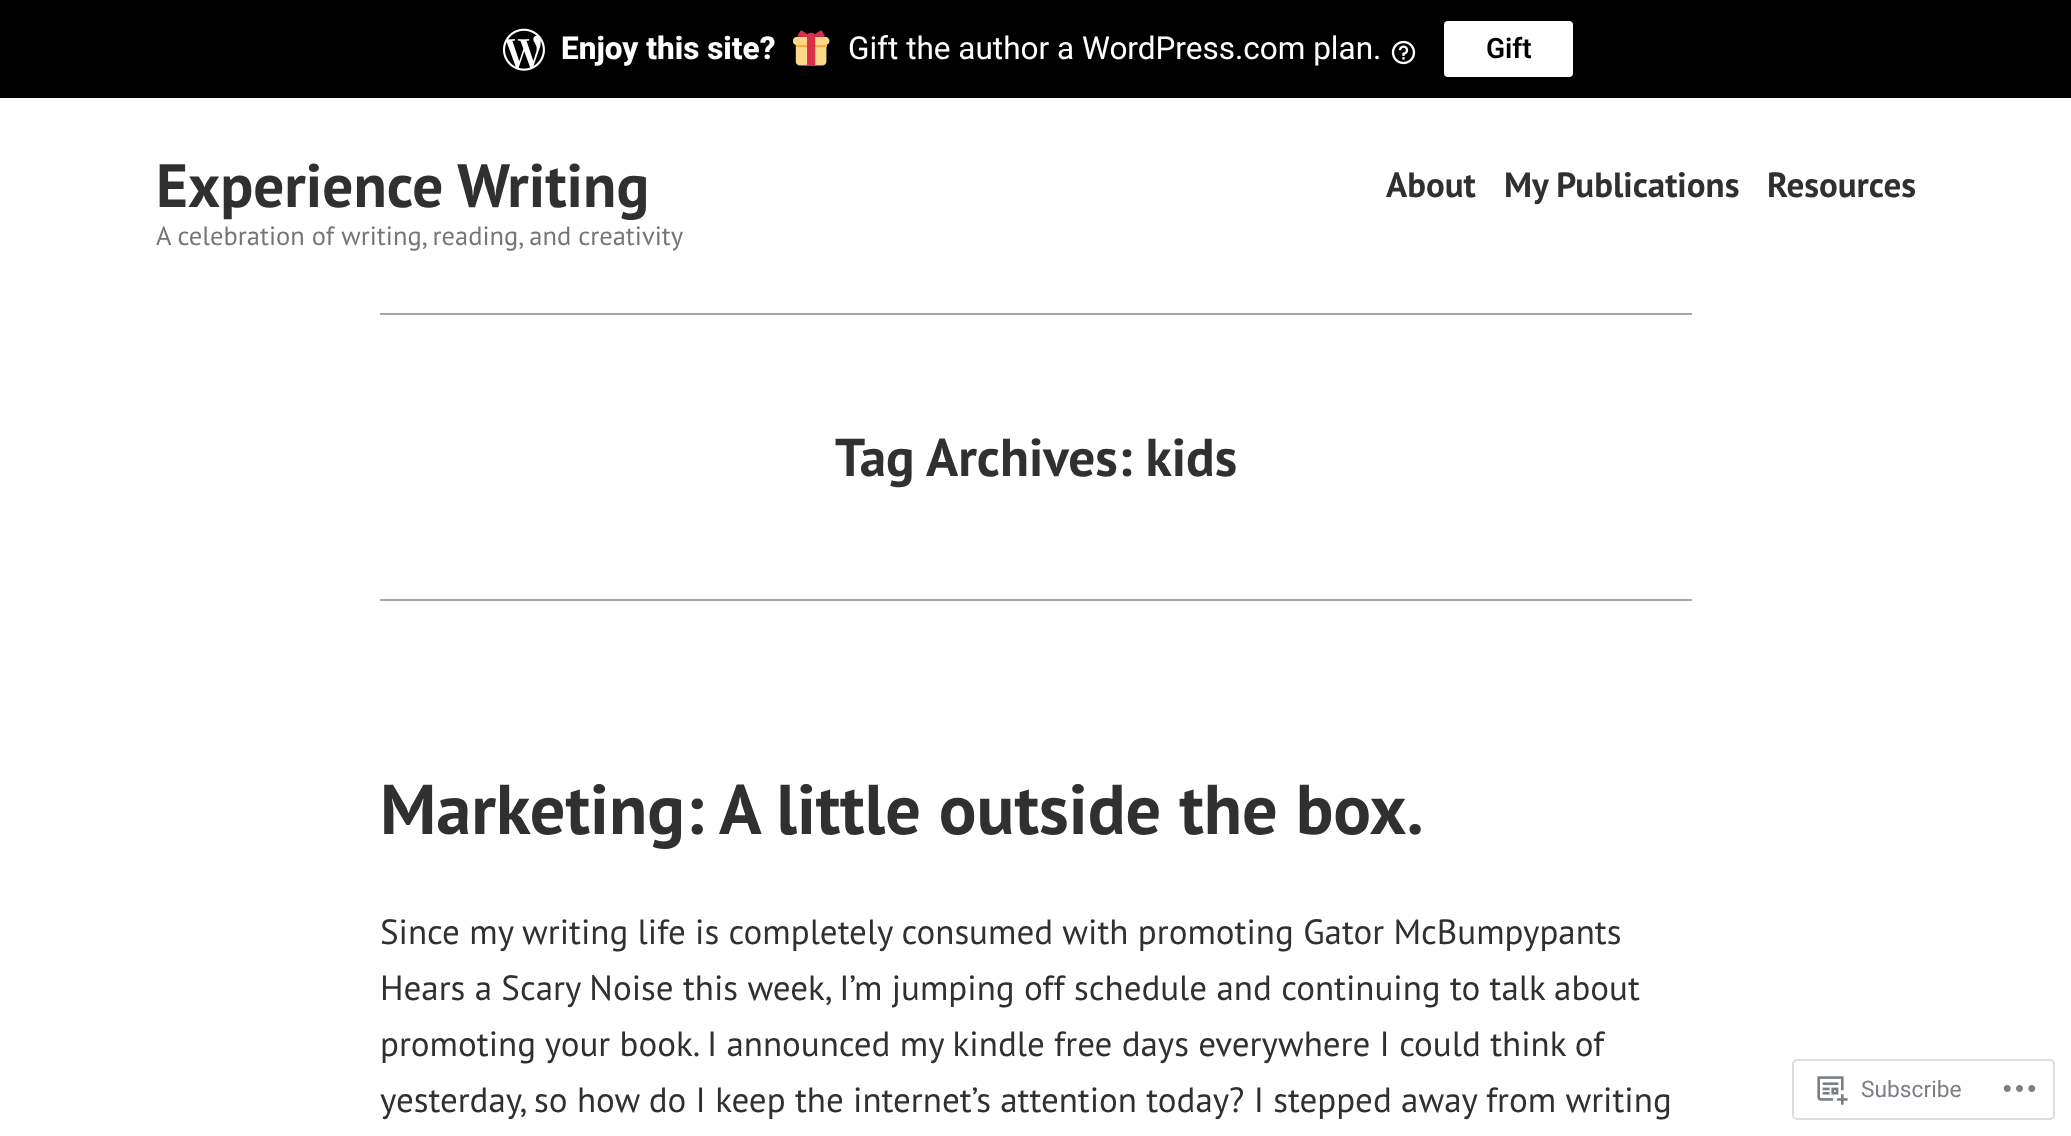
<!DOCTYPE html>
<meta charset="utf-8">
<style>body { margin: 0 } canvas { display: block }</style>
<canvas id="canvas" width="2071" height="1136"></canvas>
<img id="img1" src="img_01.png" hidden>
<img id="img2" src="img_02.png" hidden>
<img id="img3" src="img_03.png" hidden>
<img id="img4" src="img_04.png" hidden>
<img id="img5" src="img_05.png" hidden>
<script>
window.onload = function () {
	const canvas = document.getElementById("canvas");
	const ctx = canvas.getContext("2d");
	ctx.miterLimit = 4;
	ctx.fontKerning = "normal";
	function txt(s, x, y) {
		ctx.fillText(s, x, y);
	}
	function fill(x, y, w, h) {
		ctx.fillRect(x, y, w, h);
	}
	function round(x, y, w, h, r) {
		ctx.beginPath();
		ctx.roundRect(x, y, w, h, r);
		ctx.fill();
	}
	function img(id, x, y, w, h) {
		ctx.drawImage(document.getElementById(id), x, y, w, h);
	}

	ctx.fillStyle = "#FFFFFF";
	fill(0, 0, 2071, 1136);
	ctx.fillStyle = "#000000";
	fill(0, 0, 2071, 98);
	img("img1", 502, 28, 43, 43);
	img("img2", 793, 30, 37, 36);
	img("img3", 1391, 40, 25, 25);
	ctx.fillStyle = "#FFFFFF";
	round(1444, 21, 129, 56, 4);
	ctx.fillStyle = "#A5A5A5";
	fill(380, 313, 1312, 2);
	fill(380, 599, 1312, 2);
	ctx.beginPath();
	ctx.roundRect(1793, 1060, 261, 59, 4);
	ctx.strokeStyle = "#DDDDDF";
	ctx.lineWidth = 2;
	ctx.stroke();
	img("img4", 1817, 1076, 31, 29);
	img("img5", 2003, 1085, 33, 7);
	ctx.font = "800 31.5px Roboto";
	ctx.fillStyle = "#FFFFFF";
	txt("Enjoy this site?", 561, 59);
	ctx.font = "31.5px Roboto";
	txt("Gift the author a WordPress.com plan.", 848, 59);
	ctx.font = "600 28px Roboto";
	ctx.fillStyle = "#000000";
	txt("Gift", 1486, 58);
	ctx.font = "bold 61.25px PT Sans";
	ctx.fillStyle = "#303030";
	txt("Experience Writing", 156, 207);
	ctx.font = "bold 35px PT Sans";
	txt("About", 1386, 197);
	txt("My Publications", 1504, 197);
	txt("Resources", 1767, 197);
	ctx.font = "26.5px PT Sans";
	ctx.fillStyle = "#757575";
	txt("A celebration of writing, reading, and creativity", 156, 245);
	ctx.font = "bold 53.25px PT Sans";
	ctx.fillStyle = "#303030";
	txt("Tag Archives: kids", 835, 476);
	ctx.font = "bold 70.4px PT Sans";
	txt("Marketing: A little outside the box.", 380, 834);
	ctx.font = "35px PT Sans";
	txt("Since my writing life is completely consumed with promoting Gator McBumpypants", 380, 944);
	txt("Hears a Scary Noise this week, I’m jumping off schedule and continuing to talk about", 380, 1000);
	txt("promoting your book. I announced my kindle free days everywhere I could think of", 380, 1056);
	txt("yesterday, so how do I keep the internet’s attention today? I stepped away from writing", 380, 1112);
	ctx.font = "22.75px Roboto";
	ctx.fillStyle = "#7B7F85";
	txt("Subscribe", 1861, 1097);
};
</script>
